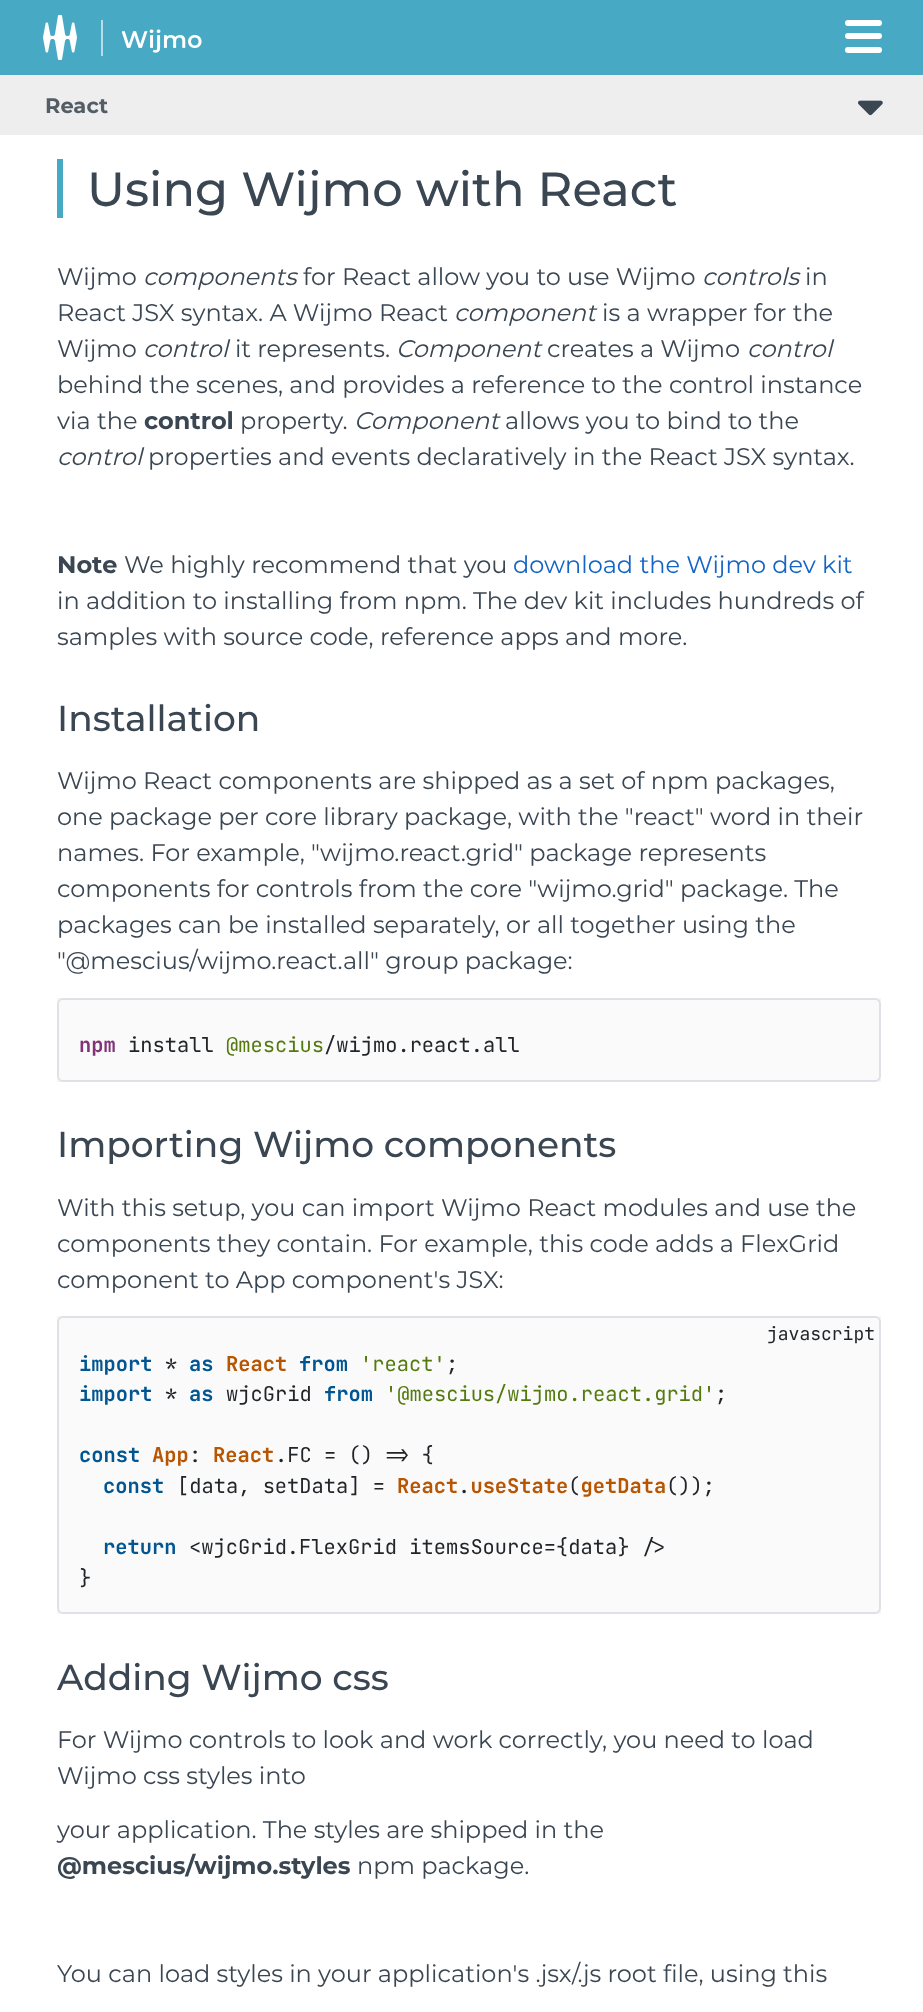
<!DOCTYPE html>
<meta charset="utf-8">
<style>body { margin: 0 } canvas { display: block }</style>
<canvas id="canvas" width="923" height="2012"></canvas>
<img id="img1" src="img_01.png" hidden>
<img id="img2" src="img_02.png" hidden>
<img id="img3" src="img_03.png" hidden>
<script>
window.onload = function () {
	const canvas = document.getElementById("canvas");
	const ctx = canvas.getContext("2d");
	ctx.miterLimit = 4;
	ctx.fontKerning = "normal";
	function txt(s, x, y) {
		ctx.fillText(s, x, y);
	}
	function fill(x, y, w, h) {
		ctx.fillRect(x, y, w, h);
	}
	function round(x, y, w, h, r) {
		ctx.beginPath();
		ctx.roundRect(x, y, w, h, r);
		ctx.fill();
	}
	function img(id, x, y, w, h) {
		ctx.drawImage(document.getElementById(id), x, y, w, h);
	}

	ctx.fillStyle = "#FFFFFF";
	fill(0, 0, 923, 2012);
	ctx.fillStyle = "#48A9C5";
	fill(0, 0, 923, 75);
	img("img1", 43, 15, 34, 46);
	ctx.fillStyle = "#B6DDE8";
	fill(101, 20, 2, 36);
	img("img2", 122, 29, 80, 24);
	ctx.fillStyle = "#FFFFFF";
	round(845, 20, 37, 6, 3);
	round(845, 33, 37, 6, 3);
	round(845, 47, 37, 6, 3);
	ctx.fillStyle = "#EEEEEE";
	fill(0, 75, 923, 60);
	img("img3", 858, 100, 25, 16);
	ctx.fillStyle = "#48A9C5";
	fill(57, 159, 6, 59);
	ctx.fillStyle = "#F6F6F6";
	fill(57, 998, 824, 84);
	ctx.fillStyle = "#FAFAFA";
	ctx.beginPath();
	ctx.roundRect(58, 999, 822, 82, 5);
	ctx.fill();
	ctx.strokeStyle = "#DEE2E6";
	ctx.lineWidth = 2;
	ctx.stroke();
	ctx.fillStyle = "#F6F6F6";
	fill(57, 1316, 824, 298);
	ctx.fillStyle = "#FAFAFA";
	ctx.beginPath();
	ctx.roundRect(58, 1317, 822, 296, 5);
	ctx.fill();
	ctx.stroke();
	ctx.font = "bold 21px Montserrat";
	ctx.fillStyle = "#535C67";
	txt("React", 45, 113);
	ctx.font = "500 48px Montserrat";
	ctx.fillStyle = "#3A4652";
	txt("Using Wijmo with React", 87, 206);
	ctx.font = "24px Montserrat";
	txt("Wijmo", 57, 285);
	ctx.font = "italic 24px Montserrat";
	txt("components", 143, 285);
	ctx.font = "24px Montserrat";
	txt("for React allow you to use Wijmo", 303, 285);
	ctx.font = "italic 24px Montserrat";
	txt("controls", 702, 285);
	ctx.font = "24px Montserrat";
	txt("in", 805, 285);
	txt("React JSX syntax. A Wijmo React", 57, 321);
	ctx.font = "italic 24px Montserrat";
	txt("component", 454, 321);
	ctx.font = "24px Montserrat";
	txt("is a wrapper for the", 602, 321);
	txt("Wijmo", 57, 357);
	ctx.font = "italic 24px Montserrat";
	txt("control", 143, 357);
	ctx.font = "24px Montserrat";
	txt("it represents.", 235, 357);
	ctx.font = "italic 24px Montserrat";
	txt("Component", 396, 357);
	ctx.font = "24px Montserrat";
	txt("creates a Wijmo", 547, 357);
	ctx.font = "italic 24px Montserrat";
	txt("control", 747, 357);
	ctx.font = "24px Montserrat";
	txt("behind the scenes, and provides a reference to the control instance", 57, 393);
	txt("via the", 57, 429);
	ctx.font = "bold 24px Montserrat";
	txt("control", 144, 429);
	ctx.font = "24px Montserrat";
	txt("property.", 240, 429);
	ctx.font = "italic 24px Montserrat";
	txt("Component", 354, 429);
	ctx.font = "24px Montserrat";
	txt("allows you to bind to the", 505, 429);
	ctx.font = "italic 24px Montserrat";
	txt("control", 57, 465);
	ctx.font = "24px Montserrat";
	txt("properties and events declaratively in the React JSX syntax.", 148, 465);
	ctx.font = "bold 24px Montserrat";
	txt("Note", 57, 573);
	ctx.font = "24px Montserrat";
	txt("We highly recommend that you", 124, 573);
	ctx.fillStyle = "#1364C4";
	txt("download the Wijmo dev kit", 513, 573);
	ctx.fillStyle = "#3A4652";
	txt("in addition to installing from npm. The dev kit includes hundreds of", 57, 609);
	txt("samples with source code, reference apps and more.", 57, 645);
	ctx.font = "500 36px Montserrat";
	txt("Installation", 57, 731);
	ctx.font = "24px Montserrat";
	txt("Wijmo React components are shipped as a set of npm packages,", 57, 789);
	txt("one package per core library package, with the \"react\" word in their", 57, 825);
	txt("names. For example, \"wijmo.react.grid\" package represents", 57, 861);
	txt("components for controls from the core \"wijmo.grid\" package. The", 57, 897);
	txt("packages can be installed separately, or all together using the", 57, 933);
	txt("\"@mescius/wijmo.react.all\" group package:", 57, 969);
	ctx.font = "bold 20.4px JetBrains Mono";
	ctx.fillStyle = "#803378";
	txt("npm", 79, 1052);
	ctx.font = "20.4px JetBrains Mono";
	ctx.fillStyle = "#212529";
	txt("install", 128, 1052);
	ctx.fillStyle = "#54790D";
	txt("@mescius", 226, 1052);
	ctx.fillStyle = "#212529";
	txt("/wijmo.react.all", 324, 1052);
	ctx.font = "500 36px Montserrat";
	ctx.fillStyle = "#3A4652";
	txt("Importing Wijmo components", 57, 1157);
	ctx.font = "24px Montserrat";
	txt("With this setup, you can import Wijmo React modules and use the", 57, 1216);
	txt("components they contain. For example, this code adds a FlexGrid", 57, 1252);
	txt("component to App component's JSX:", 57, 1288);
	ctx.font = "18px JetBrains Mono";
	ctx.fillStyle = "#212529";
	txt("javascript", 767, 1340);
	ctx.font = "bold 20.4px JetBrains Mono";
	ctx.fillStyle = "#015692";
	txt("import", 79, 1371);
	ctx.font = "20.4px JetBrains Mono";
	ctx.fillStyle = "#212529";
	txt("*", 165, 1371);
	ctx.font = "bold 20.4px JetBrains Mono";
	ctx.fillStyle = "#015692";
	txt("as", 189, 1371);
	ctx.fillStyle = "#B75501";
	txt("React", 226, 1371);
	ctx.fillStyle = "#015692";
	txt("from", 299, 1371);
	ctx.font = "20.4px JetBrains Mono";
	ctx.fillStyle = "#54790D";
	txt("'react'", 360, 1371);
	ctx.fillStyle = "#212529";
	txt(";", 446, 1371);
	ctx.font = "bold 20.4px JetBrains Mono";
	ctx.fillStyle = "#015692";
	txt("import", 79, 1401);
	ctx.font = "20.4px JetBrains Mono";
	ctx.fillStyle = "#212529";
	txt("*", 165, 1401);
	ctx.font = "bold 20.4px JetBrains Mono";
	ctx.fillStyle = "#015692";
	txt("as", 189, 1401);
	ctx.font = "20.4px JetBrains Mono";
	ctx.fillStyle = "#212529";
	txt("wjcGrid", 226, 1401);
	ctx.font = "bold 20.4px JetBrains Mono";
	ctx.fillStyle = "#015692";
	txt("from", 324, 1401);
	ctx.font = "20.4px JetBrains Mono";
	ctx.fillStyle = "#54790D";
	txt("'@mescius/wijmo.react.grid'", 385, 1401);
	ctx.fillStyle = "#212529";
	txt(";", 715, 1401);
	ctx.font = "bold 20.4px JetBrains Mono";
	ctx.fillStyle = "#015692";
	txt("const", 79, 1462);
	ctx.fillStyle = "#B75501";
	txt("App", 152, 1462);
	ctx.font = "20.4px JetBrains Mono";
	ctx.fillStyle = "#212529";
	txt(":", 189, 1462);
	ctx.font = "bold 20.4px JetBrains Mono";
	ctx.fillStyle = "#B75501";
	txt("React", 213, 1462);
	ctx.font = "20.4px JetBrains Mono";
	ctx.fillStyle = "#212529";
	txt(".FC = () => {", 275, 1462);
	txt("[data, setData] =", 177, 1493);
	txt("());", 666, 1493);
	ctx.font = "bold 20.4px JetBrains Mono";
	ctx.fillStyle = "#015692";
	txt("const", 103, 1493);
	ctx.fillStyle = "#B75501";
	txt("React useState getData", 397, 1493);
	ctx.font = "20.4px JetBrains Mono";
	ctx.fillStyle = "#212529";
	txt("(", 568, 1493);
	txt(".", 458, 1493);
	ctx.font = "bold 20.4px JetBrains Mono";
	ctx.fillStyle = "#015692";
	txt("return", 103, 1554);
	ctx.font = "20.4px JetBrains Mono";
	ctx.fillStyle = "#212529";
	txt("<wjcGrid.FlexGrid itemsSource={data} />", 189, 1554);
	txt("}", 79, 1585);
	ctx.font = "500 36px Montserrat";
	ctx.fillStyle = "#3A4652";
	txt("Adding Wijmo css", 57, 1690);
	ctx.font = "24px Montserrat";
	txt("For Wijmo controls to look and work correctly, you need to load", 57, 1748);
	txt("Wijmo css styles into", 57, 1784);
	txt("your application. The styles are shipped in the", 57, 1838);
	ctx.font = "bold 24px Montserrat";
	txt("@mescius/wijmo.styles", 57, 1874);
	ctx.font = "24px Montserrat";
	txt("npm package.", 357, 1874);
	txt("You can load styles in your application's .jsx/.js root file, using this", 57, 1982);
};
</script>
